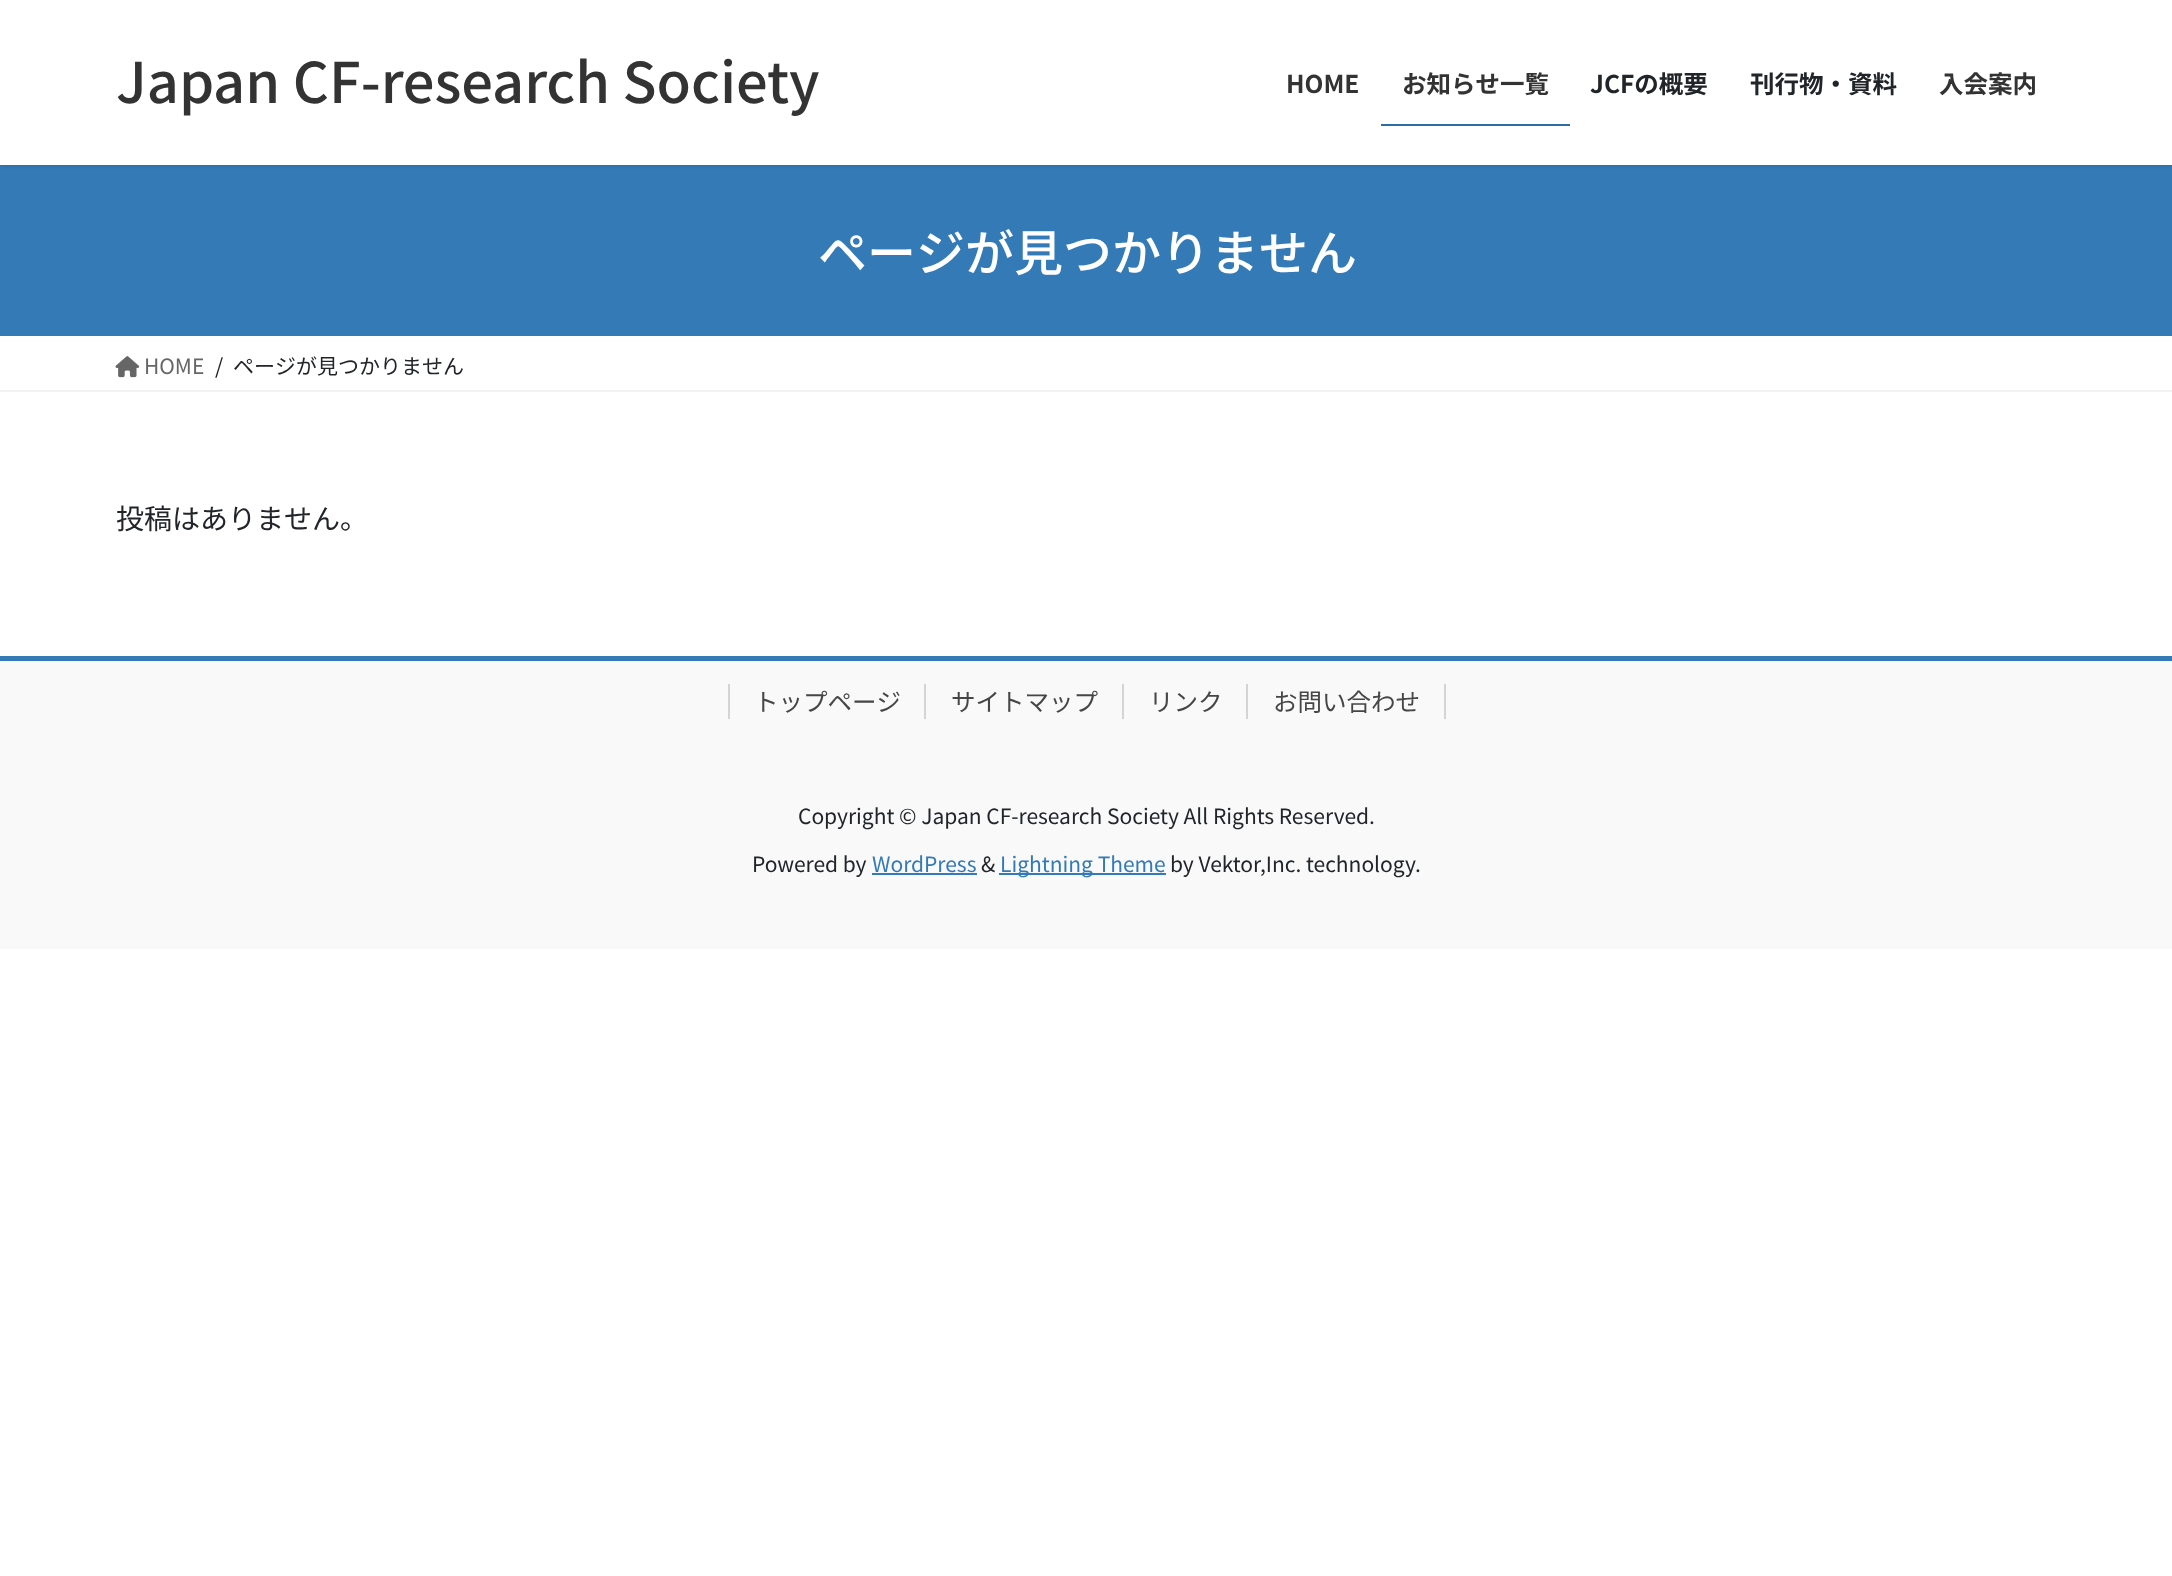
<!DOCTYPE html>
<meta charset="utf-8">
<style>body { margin: 0 } canvas { display: block }</style>
<canvas id="canvas" width="2172" height="1576"></canvas>
<img id="img1" src="img_01.png" hidden>
<script>
window.onload = function () {
	const canvas = document.getElementById("canvas");
	const ctx = canvas.getContext("2d");
	ctx.miterLimit = 4;
	ctx.fontKerning = "normal";
	function txt(s, x, y) {
		ctx.fillText(s, x, y);
	}
	function fill(x, y, w, h) {
		ctx.fillRect(x, y, w, h);
	}
	function img(id, x, y, w, h) {
		ctx.drawImage(document.getElementById(id), x, y, w, h);
	}

	ctx.fillStyle = "#FFFFFF";
	fill(0, 0, 2172, 1576);
	ctx.fillStyle = "#337AB7";
	fill(0, 165, 2172, 171);
	ctx.fillStyle = "rgba(0, 0, 0, 0.1)";
	ctx.filter = "blur(2.5px)";
	ctx.beginPath();
	ctx.rect(0, 2, 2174, 164);
	ctx.fill();
	ctx.filter = "none";
	ctx.fillStyle = "#FFFFFF";
	fill(0, 0, 2172, 165);
	ctx.fillStyle = "#2E6DA4";
	fill(1381, 124, 189, 2);
	ctx.fillStyle = "#F2F2F2";
	fill(0, 390, 2172, 2);
	img("img1", 115, 356, 25, 22);
	ctx.fillStyle = "#F9F9F9";
	fill(0, 661, 2172, 288);
	ctx.fillStyle = "#337AB7";
	fill(0, 656, 2172, 5);
	ctx.fillStyle = "#D4D4D4";
	fill(728, 684, 2, 35);
	fill(924, 684, 2, 35);
	fill(1122, 684, 2, 35);
	fill(1444, 684, 2, 35);
	fill(1246, 684, 2, 35);
	ctx.fillStyle = "#337AB7";
	fill(872, 873, 105, 2);
	fill(999, 873, 167, 2);
	ctx.font = "500 56px Noto Sans JP";
	ctx.fillStyle = "#333333";
	txt("Japan CF-research Society", 116, 103);
	ctx.font = "bold 24.5px Noto Sans JP";
	txt("HOME", 1286, 93);
	txt("お知らせ一覧", 1402, 93);
	ctx.fillStyle = "#212529";
	txt("JCFの概要", 1590, 93);
	txt("刊行物・資料", 1750, 93);
	ctx.fillStyle = "#333333";
	txt("入会案内", 1939, 93);
	ctx.font = "500 49px Noto Sans JP";
	ctx.fillStyle = "#FFFFFF";
	txt("ページが見つかりません", 818, 271);
	ctx.font = "21px Noto Sans JP";
	ctx.fillStyle = "#666666";
	txt("HOME", 144, 374);
	ctx.fillStyle = "#212529";
	txt("/", 215, 374);
	txt("ページが見つかりません", 233, 374);
	ctx.font = "28px Noto Sans JP";
	txt("投稿はありません。", 116, 529);
	ctx.font = "24.5px Noto Sans JP";
	ctx.fillStyle = "#464646";
	txt("トップページ", 754, 711);
	txt("サイトマップ", 951, 711);
	txt("リンク", 1149, 711);
	txt("お問い合わせ", 1273, 711);
	ctx.font = "21px Noto Sans JP";
	ctx.fillStyle = "#212529";
	txt("Copyright © Japan CF-research Society All Rights Reserved.", 798, 824);
	txt("Powered by", 752, 872);
	ctx.fillStyle = "#337AB7";
	txt("WordPress", 872, 872);
	ctx.fillStyle = "#212529";
	txt("&", 981, 872);
	ctx.fillStyle = "#337AB7";
	txt("Lightning Theme", 1000, 872);
	ctx.fillStyle = "#212529";
	txt("by Vektor,Inc. technology.", 1170, 872);
};
</script>
